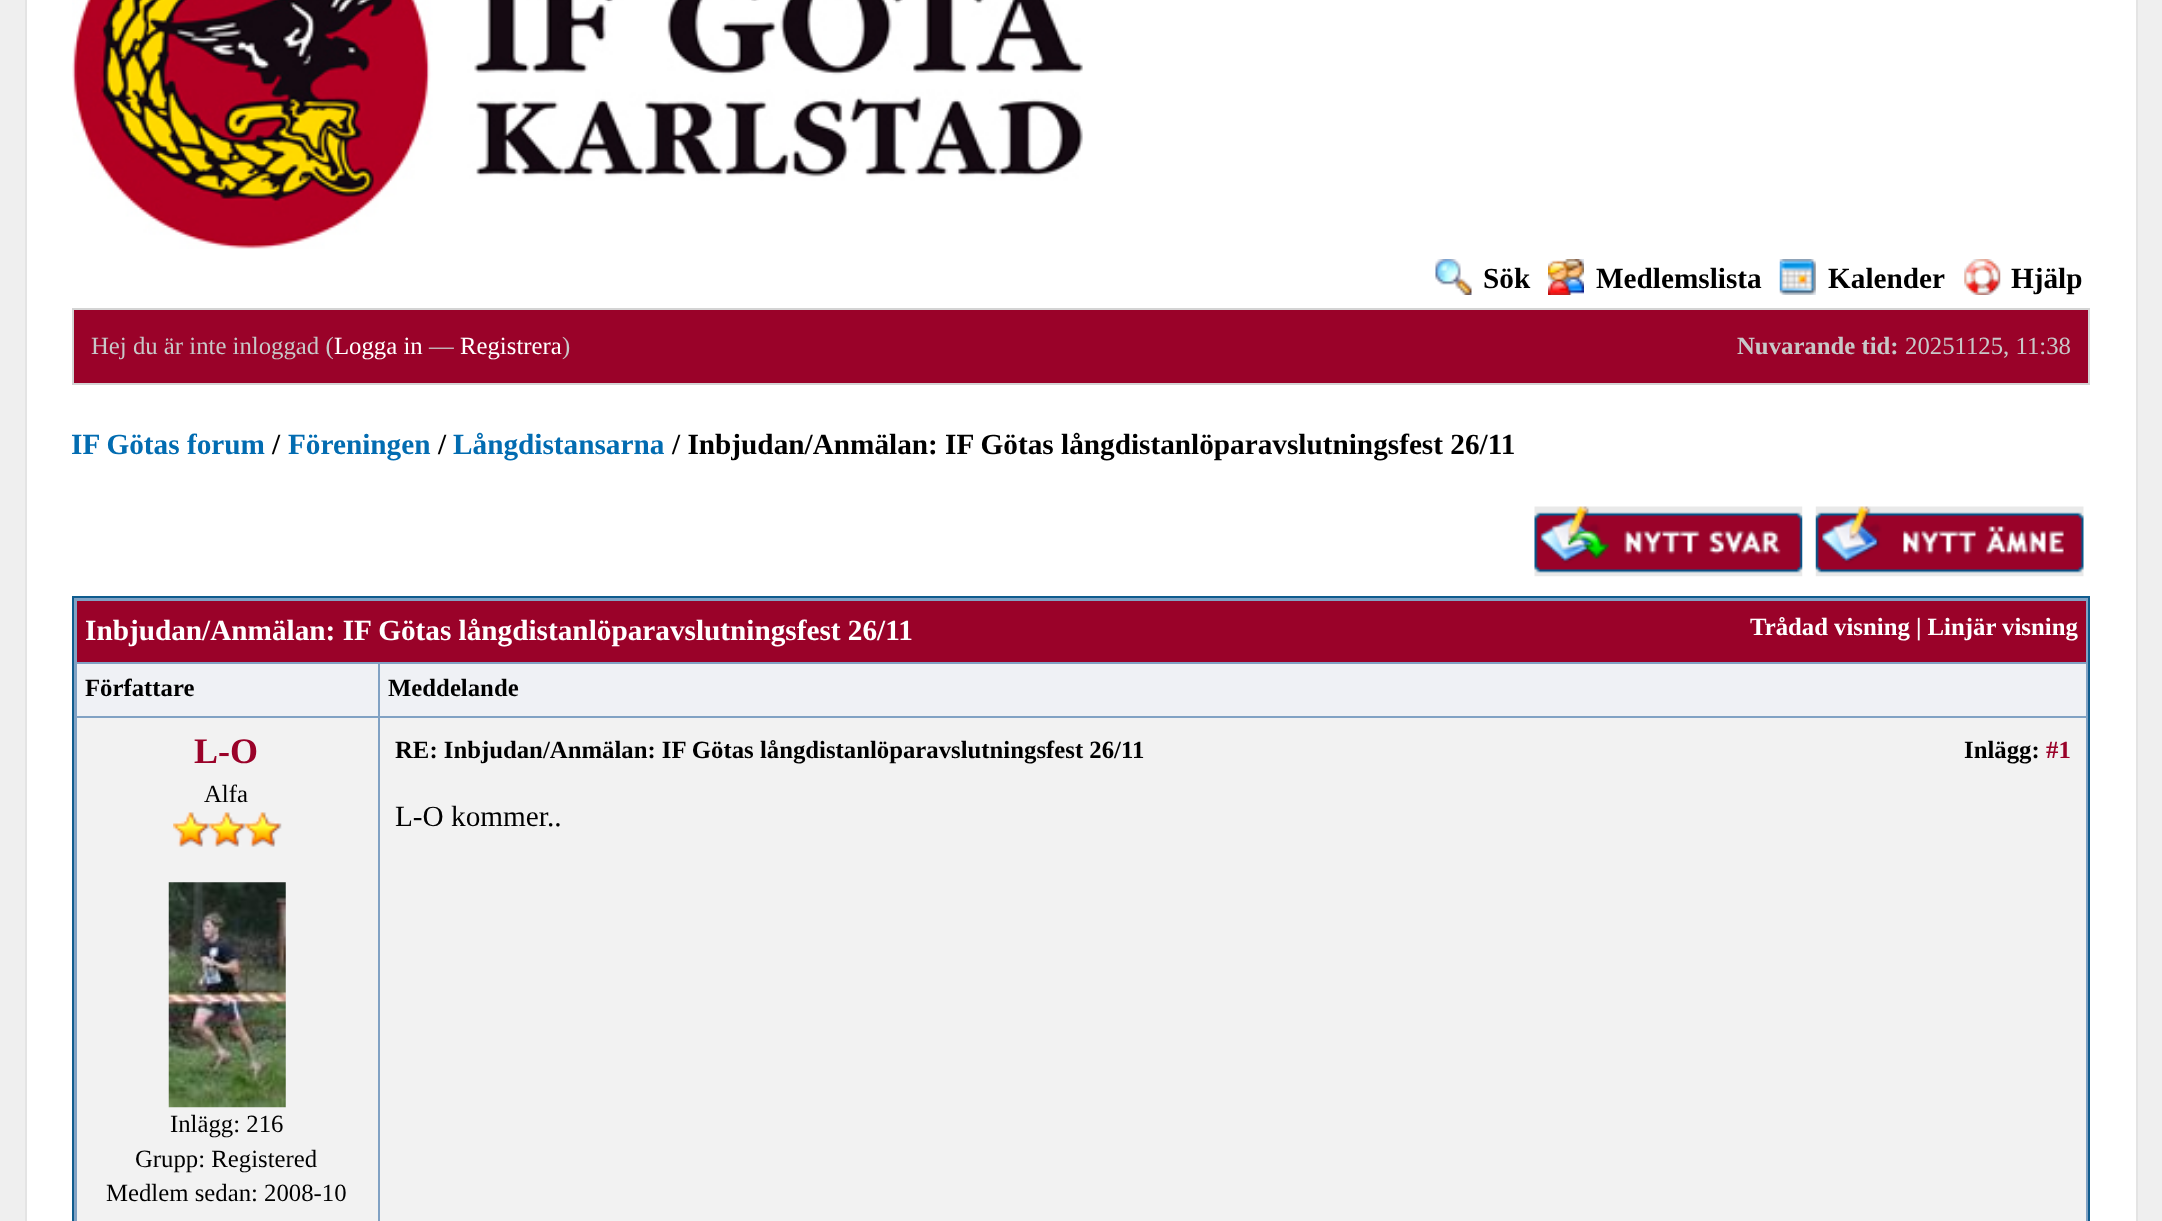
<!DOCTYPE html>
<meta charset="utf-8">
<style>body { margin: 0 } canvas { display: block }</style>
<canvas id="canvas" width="2162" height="1221"></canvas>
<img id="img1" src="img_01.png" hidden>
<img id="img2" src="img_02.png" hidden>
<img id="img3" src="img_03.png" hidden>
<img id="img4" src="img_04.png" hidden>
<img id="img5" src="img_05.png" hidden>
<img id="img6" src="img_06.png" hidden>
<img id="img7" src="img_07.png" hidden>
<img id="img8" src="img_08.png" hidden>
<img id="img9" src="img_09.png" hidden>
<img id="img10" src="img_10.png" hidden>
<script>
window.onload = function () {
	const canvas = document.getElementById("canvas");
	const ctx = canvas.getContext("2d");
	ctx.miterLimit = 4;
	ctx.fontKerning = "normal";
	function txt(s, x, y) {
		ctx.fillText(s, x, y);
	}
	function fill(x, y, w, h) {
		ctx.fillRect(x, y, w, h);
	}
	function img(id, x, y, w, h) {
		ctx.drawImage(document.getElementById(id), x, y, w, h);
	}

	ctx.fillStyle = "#EFEFEF";
	fill(0, 0, 2162, 1221);
	ctx.fillStyle = "#FFFFFF";
	ctx.beginPath();
	ctx.rect(26, -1, 2111, 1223);
	ctx.fill();
	ctx.strokeStyle = "#E4E4E4";
	ctx.lineWidth = 2;
	ctx.stroke();
	img("img1", 72, 0, 1011, 249);
	img("img2", 1435, 259, 37, 36);
	img("img3", 1548, 259, 36, 36);
	img("img4", 1779, 259, 37, 36);
	img("img5", 1964, 259, 37, 36);
	ctx.fillStyle = "#9A0229";
	ctx.beginPath();
	ctx.rect(73, 309, 2016, 75);
	ctx.fill();
	ctx.strokeStyle = "#D4D4D4";
	ctx.stroke();
	img("img6", 1534, 506, 269, 71);
	img("img7", 1815, 506, 269, 71);
	ctx.fillStyle = "#81A2C4";
	ctx.beginPath();
	ctx.rect(73, 597, 2016, 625);
	ctx.fill();
	ctx.strokeStyle = "#0F5C8E";
	ctx.stroke();
	ctx.fillStyle = "#9A0229";
	fill(77, 601, 2009, 61);
	ctx.fillStyle = "#EFF1F5";
	fill(77, 664, 301, 52);
	fill(380, 664, 1706, 52);
	ctx.fillStyle = "#F2F2F2";
	fill(77, 718, 301, 503);
	img("img8", 173, 812, 37, 35);
	img("img9", 209, 812, 37, 35);
	img("img9", 245, 812, 37, 35);
	img("img10", 168, 882, 118, 226);
	fill(380, 718, 1706, 503);
	ctx.font = "bold 29.25px Liberation Serif";
	ctx.fillStyle = "#000000";
	txt("Sök", 1483, 288);
	txt("Medlemslista", 1596, 288);
	txt("Kalender", 1828, 288);
	txt("Hjälp", 2011, 288);
	ctx.font = "24.75px Liberation Serif";
	ctx.fillStyle = "#C8C8C8";
	txt("Hej du är inte inloggad (", 91, 354);
	ctx.fillStyle = "#FFFFFF";
	txt("Logga in", 334, 354);
	ctx.fillStyle = "#C8C8C8";
	txt("—", 429, 354);
	ctx.fillStyle = "#FFFFFF";
	txt("Registrera", 460, 354);
	ctx.fillStyle = "#C8C8C8";
	txt(")", 562, 354);
	ctx.font = "bold 24.75px Liberation Serif";
	txt("Nuvarande tid:", 1737, 354);
	ctx.font = "24.75px Liberation Serif";
	txt("20251125, 11:38", 1905, 354);
	ctx.font = "bold 29.25px Liberation Serif";
	ctx.fillStyle = "#026CB1";
	txt("IF Götas forum", 71, 454);
	ctx.fillStyle = "#000000";
	txt("/", 272, 454);
	ctx.fillStyle = "#026CB1";
	txt("Föreningen", 288, 454);
	ctx.fillStyle = "#000000";
	txt("/", 438, 454);
	ctx.fillStyle = "#026CB1";
	txt("Långdistansarna", 453, 454);
	ctx.fillStyle = "#000000";
	txt("/ Inbjudan/Anmälan: IF Götas långdistanlöparavslutningsfest 26/11", 672, 454);
	ctx.fillStyle = "#FFFFFF";
	txt("Inbjudan/Anmälan: IF Götas långdistanlöparavslutningsfest 26/11", 85, 640);
	ctx.font = "bold 24.75px Liberation Serif";
	txt("Trådad visning | Linjär visning", 1750, 635);
	ctx.fillStyle = "#000000";
	txt("Författare", 85, 696);
	txt("Meddelande", 388, 696);
	ctx.font = "bold 36px Liberation Serif";
	ctx.fillStyle = "#9A0229";
	txt("L-O", 194, 763);
	ctx.font = "24.75px Liberation Serif";
	ctx.fillStyle = "#000000";
	txt("Alfa", 204, 802);
	txt("Inlägg: 216", 170, 1132);
	txt("Grupp: Registered", 135, 1167);
	txt("Medlem sedan: 2008-10", 106, 1201);
	ctx.font = "bold 24.75px Liberation Serif";
	txt("RE: Inbjudan/Anmälan: IF Götas långdistanlöparavslutningsfest 26/11", 395, 758);
	txt("Inlägg:", 1964, 758);
	ctx.fillStyle = "#9A0229";
	txt("#1", 2046, 758);
	ctx.font = "29.25px Liberation Serif";
	ctx.fillStyle = "#000000";
	txt("L-O kommer..", 395, 826);
};
</script>
